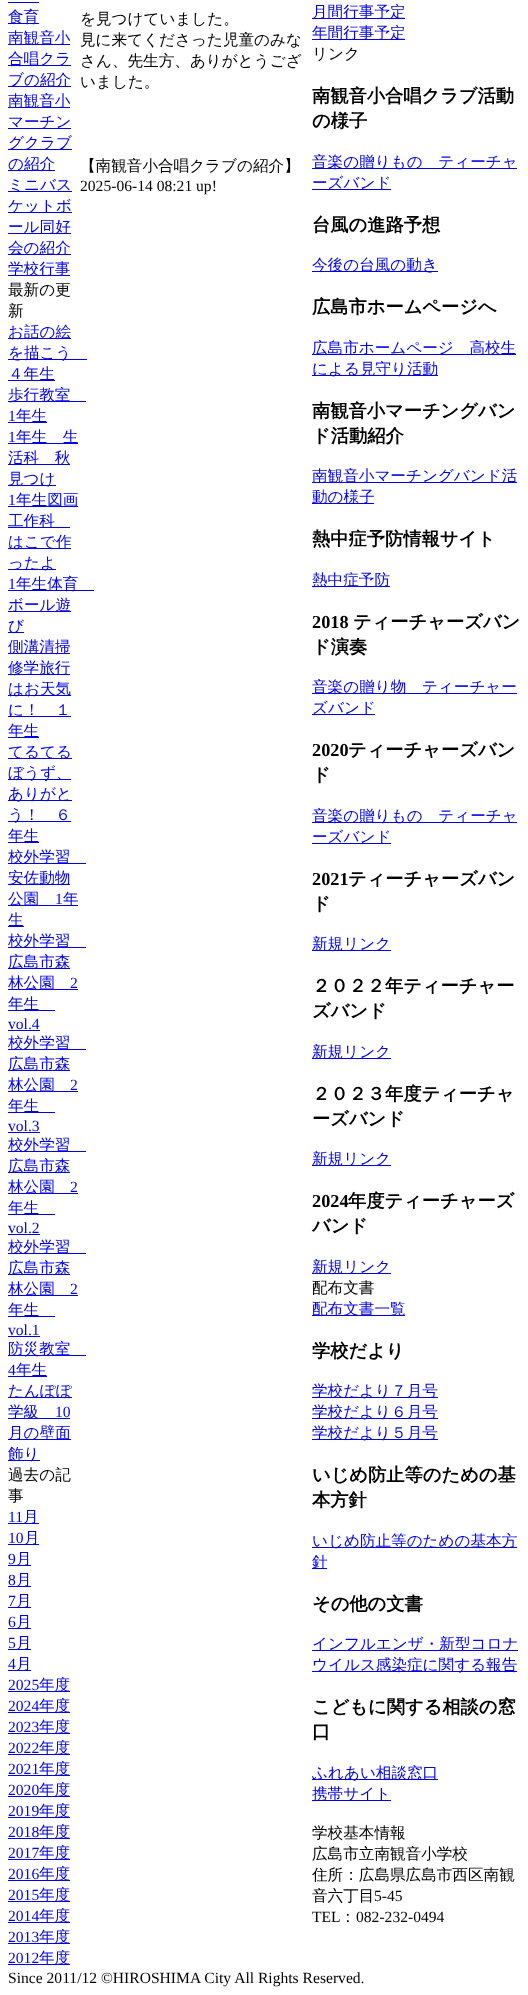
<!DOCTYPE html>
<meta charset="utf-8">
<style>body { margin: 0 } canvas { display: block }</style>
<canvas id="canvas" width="528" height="1995"></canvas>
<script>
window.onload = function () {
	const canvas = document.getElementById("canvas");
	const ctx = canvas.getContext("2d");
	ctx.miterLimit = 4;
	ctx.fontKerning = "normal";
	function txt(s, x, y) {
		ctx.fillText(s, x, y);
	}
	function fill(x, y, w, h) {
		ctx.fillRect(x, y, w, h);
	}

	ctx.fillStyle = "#FFFFFF";
	fill(0, 0, 528, 1995);
	ctx.fillStyle = "#0000EE";
	fill(8, 2, 31, 1);
	fill(8, 23, 31, 1);
	fill(8, 44, 62, 1);
	fill(8, 65, 63, 1);
	fill(8, 86, 63, 1);
	fill(8, 107, 62, 1);
	fill(8, 128, 63, 1);
	fill(8, 149, 64, 1);
	fill(8, 170, 47, 1);
	fill(8, 191, 64, 1);
	fill(8, 212, 64, 1);
	fill(8, 233, 63, 1);
	fill(8, 254, 63, 1);
	fill(8, 275, 62, 1);
	fill(8, 338, 63, 1);
	fill(8, 359, 79, 1);
	fill(8, 380, 47, 1);
	fill(8, 401, 78, 1);
	fill(8, 422, 39, 1);
	fill(8, 443, 70, 1);
	fill(8, 464, 62, 1);
	fill(8, 485, 48, 1);
	fill(8, 506, 70, 1);
	fill(8, 527, 62, 1);
	fill(8, 548, 63, 1);
	fill(8, 569, 48, 1);
	fill(8, 590, 86, 1);
	fill(8, 611, 63, 1);
	fill(8, 632, 16, 1);
	fill(8, 653, 62, 1);
	fill(8, 674, 62, 1);
	fill(8, 695, 63, 1);
	fill(8, 716, 63, 1);
	fill(8, 737, 31, 1);
	fill(8, 758, 64, 1);
	fill(8, 779, 63, 1);
	fill(8, 800, 64, 1);
	fill(8, 821, 63, 1);
	fill(8, 842, 31, 1);
	fill(8, 863, 78, 1);
	fill(8, 884, 62, 1);
	fill(8, 905, 70, 1);
	fill(8, 926, 16, 1);
	fill(8, 947, 78, 1);
	fill(8, 968, 62, 1);
	fill(8, 989, 70, 1);
	fill(8, 1010, 47, 1);
	fill(8, 1030, 32, 1);
	fill(8, 1049, 78, 1);
	fill(8, 1070, 62, 1);
	fill(8, 1091, 70, 1);
	fill(8, 1112, 47, 1);
	fill(8, 1132, 32, 1);
	fill(8, 1151, 78, 1);
	fill(8, 1172, 62, 1);
	fill(8, 1193, 70, 1);
	fill(8, 1214, 47, 1);
	fill(8, 1234, 32, 1);
	fill(8, 1253, 78, 1);
	fill(8, 1274, 62, 1);
	fill(8, 1295, 70, 1);
	fill(8, 1316, 47, 1);
	fill(8, 1336, 32, 1);
	fill(8, 1355, 78, 1);
	fill(8, 1376, 39, 1);
	fill(8, 1397, 64, 1);
	fill(8, 1418, 62, 1);
	fill(8, 1439, 63, 1);
	fill(8, 1460, 32, 1);
	fill(8, 1523, 31, 1);
	fill(8, 1544, 31, 1);
	fill(8, 1565, 23, 1);
	fill(8, 1586, 23, 1);
	fill(8, 1607, 23, 1);
	fill(8, 1628, 23, 1);
	fill(8, 1649, 23, 1);
	fill(8, 1670, 23, 1);
	fill(8, 1691, 62, 1);
	fill(8, 1712, 62, 1);
	fill(8, 1733, 62, 1);
	fill(8, 1754, 62, 1);
	fill(8, 1775, 62, 1);
	fill(8, 1796, 62, 1);
	fill(8, 1817, 62, 1);
	fill(8, 1838, 62, 1);
	fill(8, 1859, 62, 1);
	fill(8, 1880, 62, 1);
	fill(8, 1901, 62, 1);
	fill(8, 1922, 62, 1);
	fill(8, 1943, 62, 1);
	fill(8, 1964, 62, 1);
	fill(312, 18, 93, 1);
	fill(312, 39, 93, 1);
	fill(312, 168, 205, 1);
	fill(312, 189, 79, 1);
	fill(312, 271, 126, 1);
	fill(312, 354, 204, 1);
	fill(312, 375, 126, 1);
	fill(312, 482, 205, 1);
	fill(312, 503, 62, 1);
	fill(312, 586, 78, 1);
	fill(312, 693, 205, 1);
	fill(312, 714, 63, 1);
	fill(312, 822, 205, 1);
	fill(312, 843, 79, 1);
	fill(312, 950, 79, 1);
	fill(312, 1058, 79, 1);
	fill(312, 1165, 79, 1);
	fill(312, 1273, 79, 1);
	fill(312, 1315, 93, 1);
	fill(312, 1397, 126, 1);
	fill(312, 1418, 126, 1);
	fill(312, 1439, 126, 1);
	fill(312, 1547, 205, 1);
	fill(312, 1568, 15, 1);
	fill(312, 1650, 206, 1);
	fill(312, 1671, 205, 1);
	fill(312, 1779, 126, 1);
	fill(312, 1800, 79, 1);
	ctx.font = "500 15.6px WenQuanYi Zen Hei";
	txt("食育", 8, 22);
	txt("南観音小", 8, 43);
	txt("合唱クラ", 8, 64);
	txt("ブの紹介", 8, 85);
	txt("南観音小", 8, 106);
	txt("マーチン", 8, 127);
	txt("グクラブ", 8, 148);
	txt("の紹介", 8, 169);
	txt("ミニバス", 8, 190);
	txt("ケットボ", 8, 211);
	txt("ール同好", 8, 232);
	txt("会の紹介", 8, 253);
	txt("学校行事", 8, 274);
	ctx.fillStyle = "#000000";
	txt("最新の更", 8, 295);
	txt("新", 8, 316);
	ctx.fillStyle = "#0000EE";
	txt("お話の絵", 8, 337);
	txt("を描こう", 8, 358);
	txt("４年生", 8, 379);
	txt("歩行教室", 8, 400);
	ctx.font = "15.6px Liberation Serif";
	txt("1", 8, 421);
	ctx.font = "500 15.6px WenQuanYi Zen Hei";
	txt("年生", 16, 421);
	ctx.font = "15.6px Liberation Serif";
	txt("1", 8, 442);
	ctx.font = "500 15.6px WenQuanYi Zen Hei";
	txt("年生　生", 16, 442);
	txt("活科　秋", 8, 463);
	txt("見つけ", 8, 484);
	ctx.font = "15.6px Liberation Serif";
	txt("1", 8, 505);
	ctx.font = "500 15.6px WenQuanYi Zen Hei";
	txt("年生図画", 16, 505);
	txt("工作科", 8, 526);
	txt("はこで作", 8, 547);
	txt("ったよ", 8, 568);
	ctx.font = "15.6px Liberation Serif";
	txt("1", 8, 589);
	ctx.font = "500 15.6px WenQuanYi Zen Hei";
	txt("年生体育", 16, 589);
	txt("ボール遊", 8, 610);
	txt("び", 8, 631);
	txt("側溝清掃", 8, 652);
	txt("修学旅行", 8, 673);
	txt("はお天気", 8, 694);
	txt("に！　１", 8, 715);
	txt("年生", 8, 736);
	txt("てるてる", 8, 757);
	txt("ぼうず、", 8, 778);
	txt("ありがと", 8, 799);
	txt("う！　６", 8, 820);
	txt("年生", 8, 841);
	txt("校外学習", 8, 862);
	txt("安佐動物", 8, 883);
	txt("公園", 8, 904);
	ctx.font = "15.6px Liberation Serif";
	txt("1", 55, 904);
	ctx.font = "500 15.6px WenQuanYi Zen Hei";
	txt("年", 63, 904);
	txt("生", 8, 925);
	txt("校外学習", 8, 946);
	txt("広島市森", 8, 967);
	txt("林公園", 8, 988);
	ctx.font = "15.6px Liberation Serif";
	txt("2", 70, 988);
	ctx.font = "500 15.6px WenQuanYi Zen Hei";
	txt("年生", 8, 1009);
	ctx.font = "15.6px Liberation Serif";
	txt("vol.4", 8, 1029);
	ctx.font = "500 15.6px WenQuanYi Zen Hei";
	txt("校外学習", 8, 1048);
	txt("広島市森", 8, 1069);
	txt("林公園", 8, 1090);
	ctx.font = "15.6px Liberation Serif";
	txt("2", 70, 1090);
	ctx.font = "500 15.6px WenQuanYi Zen Hei";
	txt("年生", 8, 1111);
	ctx.font = "15.6px Liberation Serif";
	txt("vol.3", 8, 1131);
	ctx.font = "500 15.6px WenQuanYi Zen Hei";
	txt("校外学習", 8, 1150);
	txt("広島市森", 8, 1171);
	txt("林公園", 8, 1192);
	ctx.font = "15.6px Liberation Serif";
	txt("2", 70, 1192);
	ctx.font = "500 15.6px WenQuanYi Zen Hei";
	txt("年生", 8, 1213);
	ctx.font = "15.6px Liberation Serif";
	txt("vol.2", 8, 1233);
	ctx.font = "500 15.6px WenQuanYi Zen Hei";
	txt("校外学習", 8, 1252);
	txt("広島市森", 8, 1273);
	txt("林公園", 8, 1294);
	ctx.font = "15.6px Liberation Serif";
	txt("2", 70, 1294);
	ctx.font = "500 15.6px WenQuanYi Zen Hei";
	txt("年生", 8, 1315);
	ctx.font = "15.6px Liberation Serif";
	txt("vol.1", 8, 1335);
	ctx.font = "500 15.6px WenQuanYi Zen Hei";
	txt("防災教室", 8, 1354);
	ctx.font = "15.6px Liberation Serif";
	txt("4", 8, 1375);
	ctx.font = "500 15.6px WenQuanYi Zen Hei";
	txt("年生", 16, 1375);
	txt("たんぽぽ", 8, 1396);
	txt("学級", 8, 1417);
	ctx.font = "15.6px Liberation Serif";
	txt("10", 55, 1417);
	ctx.font = "500 15.6px WenQuanYi Zen Hei";
	txt("月の壁面", 8, 1438);
	txt("飾り", 8, 1459);
	ctx.fillStyle = "#000000";
	txt("過去の記", 8, 1480);
	txt("事", 8, 1501);
	ctx.font = "15.6px Liberation Serif";
	ctx.fillStyle = "#0000EE";
	txt("11", 8, 1522);
	ctx.font = "500 15.6px WenQuanYi Zen Hei";
	txt("月", 23, 1522);
	ctx.font = "15.6px Liberation Serif";
	txt("10", 8, 1543);
	ctx.font = "500 15.6px WenQuanYi Zen Hei";
	txt("月", 24, 1543);
	ctx.font = "15.6px Liberation Serif";
	txt("9", 8, 1564);
	ctx.font = "500 15.6px WenQuanYi Zen Hei";
	txt("月", 16, 1564);
	ctx.font = "15.6px Liberation Serif";
	txt("8", 8, 1585);
	ctx.font = "500 15.6px WenQuanYi Zen Hei";
	txt("月", 16, 1585);
	ctx.font = "15.6px Liberation Serif";
	txt("7", 8, 1606);
	ctx.font = "500 15.6px WenQuanYi Zen Hei";
	txt("月", 16, 1606);
	ctx.font = "15.6px Liberation Serif";
	txt("6", 8, 1627);
	ctx.font = "500 15.6px WenQuanYi Zen Hei";
	txt("月", 16, 1627);
	ctx.font = "15.6px Liberation Serif";
	txt("5", 8, 1648);
	ctx.font = "500 15.6px WenQuanYi Zen Hei";
	txt("月", 16, 1648);
	ctx.font = "15.6px Liberation Serif";
	txt("4", 8, 1669);
	ctx.font = "500 15.6px WenQuanYi Zen Hei";
	txt("月", 16, 1669);
	ctx.font = "15.6px Liberation Serif";
	txt("2025", 8, 1690);
	ctx.font = "500 15.6px WenQuanYi Zen Hei";
	txt("年度", 39, 1690);
	ctx.font = "15.6px Liberation Serif";
	txt("2024", 8, 1711);
	ctx.font = "500 15.6px WenQuanYi Zen Hei";
	txt("年度", 39, 1711);
	ctx.font = "15.6px Liberation Serif";
	txt("2023", 8, 1732);
	ctx.font = "500 15.6px WenQuanYi Zen Hei";
	txt("年度", 39, 1732);
	ctx.font = "15.6px Liberation Serif";
	txt("2022", 8, 1753);
	ctx.font = "500 15.6px WenQuanYi Zen Hei";
	txt("年度", 39, 1753);
	ctx.font = "15.6px Liberation Serif";
	txt("2021", 8, 1774);
	ctx.font = "500 15.6px WenQuanYi Zen Hei";
	txt("年度", 39, 1774);
	ctx.font = "15.6px Liberation Serif";
	txt("2020", 8, 1795);
	ctx.font = "500 15.6px WenQuanYi Zen Hei";
	txt("年度", 39, 1795);
	ctx.font = "15.6px Liberation Serif";
	txt("2019", 8, 1816);
	ctx.font = "500 15.6px WenQuanYi Zen Hei";
	txt("年度", 39, 1816);
	ctx.font = "15.6px Liberation Serif";
	txt("2018", 8, 1837);
	ctx.font = "500 15.6px WenQuanYi Zen Hei";
	txt("年度", 39, 1837);
	ctx.font = "15.6px Liberation Serif";
	txt("2017", 8, 1858);
	ctx.font = "500 15.6px WenQuanYi Zen Hei";
	txt("年度", 39, 1858);
	ctx.font = "15.6px Liberation Serif";
	txt("2016", 8, 1879);
	ctx.font = "500 15.6px WenQuanYi Zen Hei";
	txt("年度", 39, 1879);
	ctx.font = "15.6px Liberation Serif";
	txt("2015", 8, 1900);
	ctx.font = "500 15.6px WenQuanYi Zen Hei";
	txt("年度", 39, 1900);
	ctx.font = "15.6px Liberation Serif";
	txt("2014", 8, 1921);
	ctx.font = "500 15.6px WenQuanYi Zen Hei";
	txt("年度", 39, 1921);
	ctx.font = "15.6px Liberation Serif";
	txt("2013", 8, 1942);
	ctx.font = "500 15.6px WenQuanYi Zen Hei";
	txt("年度", 39, 1942);
	ctx.font = "15.6px Liberation Serif";
	txt("2012", 8, 1963);
	ctx.font = "500 15.6px WenQuanYi Zen Hei";
	txt("年度", 39, 1963);
	ctx.fillStyle = "#000000";
	txt("を見つけていました。", 80, 24);
	txt("見に来てくださった児童のみな", 80, 45);
	txt("さん、先生方、ありがとうござ", 80, 66);
	txt("いました。", 80, 87);
	txt("【南観音小合唱クラブの紹介】", 80, 171);
	ctx.font = "15.6px Liberation Serif";
	txt("2025-06-14 08:21 up!", 80, 191);
	ctx.font = "500 15.6px WenQuanYi Zen Hei";
	ctx.fillStyle = "#0000EE";
	txt("月間行事予定", 312, 17);
	txt("年間行事予定", 312, 38);
	ctx.fillStyle = "#000000";
	txt("リンク", 312, 59);
	ctx.font = "bold 18.25px WenQuanYi Zen Hei";
	txt("南観音小合唱クラブ活動", 312, 102);
	txt("の様子", 312, 127);
	ctx.font = "500 15.6px WenQuanYi Zen Hei";
	ctx.fillStyle = "#0000EE";
	txt("音楽の贈りもの　ティーチャ", 312, 167);
	txt("ーズバンド", 312, 188);
	ctx.font = "bold 18.25px WenQuanYi Zen Hei";
	ctx.fillStyle = "#000000";
	txt("台風の進路予想", 312, 231);
	ctx.font = "500 15.6px WenQuanYi Zen Hei";
	ctx.fillStyle = "#0000EE";
	txt("今後の台風の動き", 312, 270);
	ctx.font = "bold 18.25px WenQuanYi Zen Hei";
	ctx.fillStyle = "#000000";
	txt("広島市ホームページへ", 312, 313);
	ctx.font = "500 15.6px WenQuanYi Zen Hei";
	ctx.fillStyle = "#0000EE";
	txt("広島市ホームページ　高校生", 312, 353);
	txt("による見守り活動", 312, 374);
	ctx.font = "bold 18.25px WenQuanYi Zen Hei";
	ctx.fillStyle = "#000000";
	txt("南観音小マーチングバン", 312, 417);
	txt("ド活動紹介", 312, 442);
	ctx.font = "500 15.6px WenQuanYi Zen Hei";
	ctx.fillStyle = "#0000EE";
	txt("南観音小マーチングバンド活", 312, 481);
	txt("動の様子", 312, 502);
	ctx.font = "bold 18.25px WenQuanYi Zen Hei";
	ctx.fillStyle = "#000000";
	txt("熱中症予防情報サイト", 312, 545);
	ctx.font = "500 15.6px WenQuanYi Zen Hei";
	ctx.fillStyle = "#0000EE";
	txt("熱中症予防", 312, 585);
	ctx.font = "bold 18.25px Liberation Serif";
	ctx.fillStyle = "#000000";
	txt("2018", 312, 628);
	ctx.font = "bold 18.25px WenQuanYi Zen Hei";
	txt("ティーチャーズバン", 353, 628);
	txt("ド演奏", 312, 653);
	ctx.font = "500 15.6px WenQuanYi Zen Hei";
	ctx.fillStyle = "#0000EE";
	txt("音楽の贈り物　ティーチャー", 312, 692);
	txt("ズバンド", 312, 713);
	ctx.font = "bold 18.25px Liberation Serif";
	ctx.fillStyle = "#000000";
	txt("2020", 312, 756);
	ctx.font = "bold 18.25px WenQuanYi Zen Hei";
	txt("ティーチャーズバン", 348, 756);
	txt("ド", 312, 781);
	ctx.font = "500 15.6px WenQuanYi Zen Hei";
	ctx.fillStyle = "#0000EE";
	txt("音楽の贈りもの　ティーチャ", 312, 821);
	txt("ーズバンド", 312, 842);
	ctx.font = "bold 18.25px Liberation Serif";
	ctx.fillStyle = "#000000";
	txt("2021", 312, 885);
	ctx.font = "bold 18.25px WenQuanYi Zen Hei";
	txt("ティーチャーズバン", 348, 885);
	txt("ド", 312, 910);
	ctx.font = "500 15.6px WenQuanYi Zen Hei";
	ctx.fillStyle = "#0000EE";
	txt("新規リンク", 312, 949);
	ctx.font = "bold 18.25px WenQuanYi Zen Hei";
	ctx.fillStyle = "#000000";
	txt("２０２２年ティーチャー", 312, 992);
	txt("ズバンド", 312, 1017);
	ctx.font = "500 15.6px WenQuanYi Zen Hei";
	ctx.fillStyle = "#0000EE";
	txt("新規リンク", 312, 1057);
	ctx.font = "bold 18.25px WenQuanYi Zen Hei";
	ctx.fillStyle = "#000000";
	txt("２０２３年度ティーチャ", 312, 1100);
	txt("ーズバンド", 312, 1125);
	ctx.font = "500 15.6px WenQuanYi Zen Hei";
	ctx.fillStyle = "#0000EE";
	txt("新規リンク", 312, 1164);
	ctx.font = "bold 18.25px Liberation Serif";
	ctx.fillStyle = "#000000";
	txt("2024", 312, 1207);
	ctx.font = "bold 18.25px WenQuanYi Zen Hei";
	txt("年度ティーチャーズ", 348, 1207);
	txt("バンド", 312, 1232);
	ctx.font = "500 15.6px WenQuanYi Zen Hei";
	ctx.fillStyle = "#0000EE";
	txt("新規リンク", 312, 1272);
	ctx.fillStyle = "#000000";
	txt("配布文書", 312, 1293);
	ctx.fillStyle = "#0000EE";
	txt("配布文書一覧", 312, 1314);
	ctx.font = "bold 18.25px WenQuanYi Zen Hei";
	ctx.fillStyle = "#000000";
	txt("学校だより", 312, 1357);
	ctx.font = "500 15.6px WenQuanYi Zen Hei";
	ctx.fillStyle = "#0000EE";
	txt("学校だより７月号", 312, 1396);
	txt("学校だより６月号", 312, 1417);
	txt("学校だより５月号", 312, 1438);
	ctx.font = "bold 18.25px WenQuanYi Zen Hei";
	ctx.fillStyle = "#000000";
	txt("いじめ防止等のための基", 312, 1481);
	txt("本方針", 312, 1506);
	ctx.font = "500 15.6px WenQuanYi Zen Hei";
	ctx.fillStyle = "#0000EE";
	txt("いじめ防止等のための基本方", 312, 1546);
	txt("針", 312, 1567);
	ctx.font = "bold 18.25px WenQuanYi Zen Hei";
	ctx.fillStyle = "#000000";
	txt("その他の文書", 312, 1610);
	ctx.font = "500 15.6px WenQuanYi Zen Hei";
	ctx.fillStyle = "#0000EE";
	txt("インフルエンザ・新型コロナ", 312, 1649);
	txt("ウイルス感染症に関する報告", 312, 1670);
	ctx.font = "bold 18.25px WenQuanYi Zen Hei";
	ctx.fillStyle = "#000000";
	txt("こどもに関する相談の窓", 312, 1713);
	txt("口", 312, 1738);
	ctx.font = "500 15.6px WenQuanYi Zen Hei";
	ctx.fillStyle = "#0000EE";
	txt("ふれあい相談窓口", 312, 1778);
	txt("携帯サイト", 312, 1799);
	ctx.fillStyle = "#000000";
	txt("学校基本情報", 312, 1838);
	txt("広島市立南観音小学校", 312, 1859);
	txt("住所：広島県広島市西区南観", 312, 1880);
	txt("音六丁目", 312, 1901);
	ctx.font = "15.6px Liberation Serif";
	txt("5-45", 374, 1901);
	txt("TEL", 312, 1922);
	ctx.font = "500 15.6px WenQuanYi Zen Hei";
	txt("：", 340, 1922);
	ctx.font = "15.6px Liberation Serif";
	txt("082-232-0494", 356, 1922);
	txt("Since 2011/12 ©HIROSHIMA City All Rights Reserved.", 8, 1983);
};
</script>
